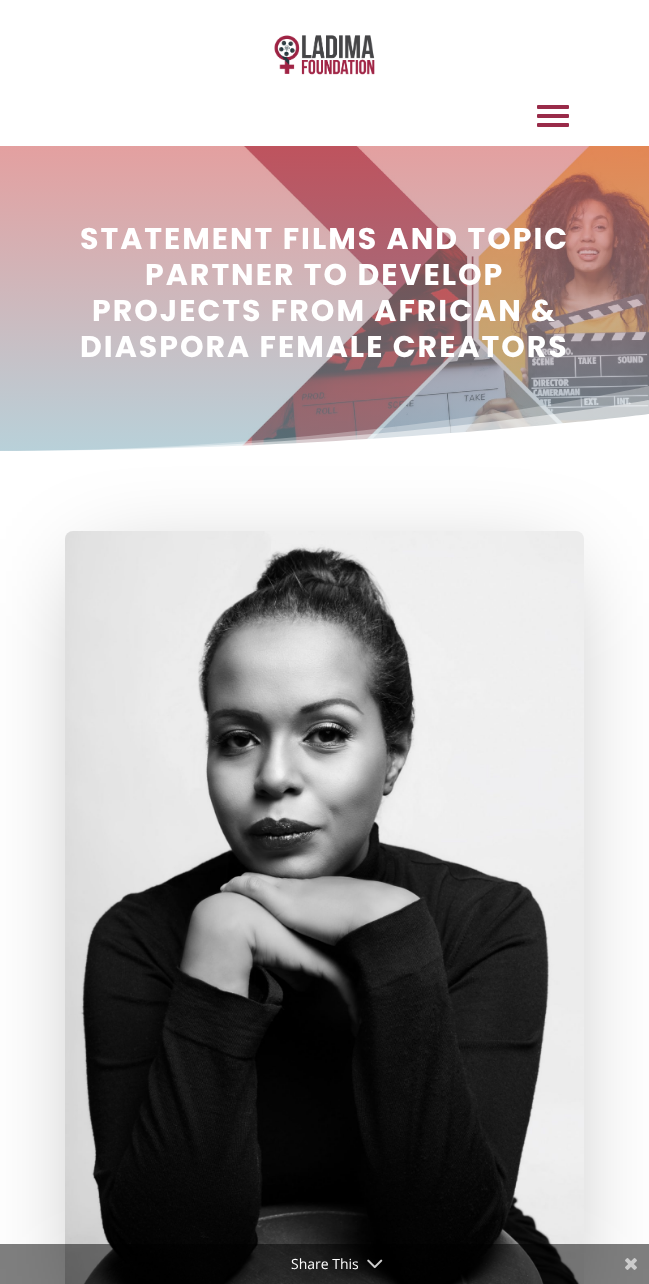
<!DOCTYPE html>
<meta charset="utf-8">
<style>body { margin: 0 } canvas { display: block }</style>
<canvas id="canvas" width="649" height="1284"></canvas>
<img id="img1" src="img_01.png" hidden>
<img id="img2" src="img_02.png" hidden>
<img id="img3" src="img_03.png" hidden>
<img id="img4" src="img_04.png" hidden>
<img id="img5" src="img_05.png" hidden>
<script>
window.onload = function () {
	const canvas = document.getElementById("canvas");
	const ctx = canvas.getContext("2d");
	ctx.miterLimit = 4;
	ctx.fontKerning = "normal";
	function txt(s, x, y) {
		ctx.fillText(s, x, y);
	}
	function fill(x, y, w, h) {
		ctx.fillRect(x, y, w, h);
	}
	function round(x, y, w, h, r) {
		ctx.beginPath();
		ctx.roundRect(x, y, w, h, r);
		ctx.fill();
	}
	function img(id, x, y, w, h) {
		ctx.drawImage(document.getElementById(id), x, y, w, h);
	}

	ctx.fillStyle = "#FFFFFF";
	fill(0, 0, 649, 1284);
	img("img1", 274, 35, 101, 40);
	ctx.fillStyle = "#992B49";
	round(537, 105, 32, 4, 1);
	round(537, 114, 32, 4, 1);
	round(537, 123, 32, 4, 1);
	img("img2", 0, 146, 649, 305);
	ctx.fillStyle = "rgba(255, 255, 255, 0.3)";
	ctx.beginPath();
	ctx.moveTo(649, 451);
	ctx.lineTo(0, 451);
	ctx.bezierCurveTo(358, 451, 649, 386, 649, 386);
	ctx.closePath();
	ctx.fill();
	ctx.fillStyle = "rgba(255, 255, 255, 0.5)";
	ctx.beginPath();
	ctx.moveTo(649, 451);
	ctx.lineTo(0, 451);
	ctx.bezierCurveTo(358, 451, 649, 400, 649, 400);
	ctx.closePath();
	ctx.fill();
	ctx.fillStyle = "#FFFFFF";
	ctx.beginPath();
	ctx.moveTo(649, 451);
	ctx.lineTo(0, 451);
	ctx.bezierCurveTo(358, 451, 649, 414, 649, 414);
	ctx.closePath();
	ctx.fill();
	ctx.fillStyle = "rgba(0, 0, 0, 0.3)";
	ctx.filter = "blur(48px)";
	ctx.beginPath();
	ctx.rect(89, 571, 471, 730);
	ctx.fill();
	ctx.filter = "none";
	img("img3", 65, 531, 519, 753);
	ctx.fillStyle = "rgba(0, 0, 0, 0.5)";
	fill(0, 1244, 649, 40);
	img("img4", 367, 1259, 16, 10);
	img("img5", 625, 1258, 12, 12);
	ctx.letterSpacing = "2px";
	ctx.font = "bold 30px Poppins";
	ctx.fillStyle = "#FFFFFF";
	txt("STATEMENT FILMS AND TOPIC", 80, 249);
	txt("PARTNER TO DEVELOP", 145, 285);
	txt("PROJECTS FROM AFRICAN &", 92, 321);
	txt("DIASPORA FEMALE CREATORS", 80, 357);
	ctx.letterSpacing = "0px";
	ctx.font = "14px Open Sans";
	txt("Share This", 291, 1269);
};
</script>
